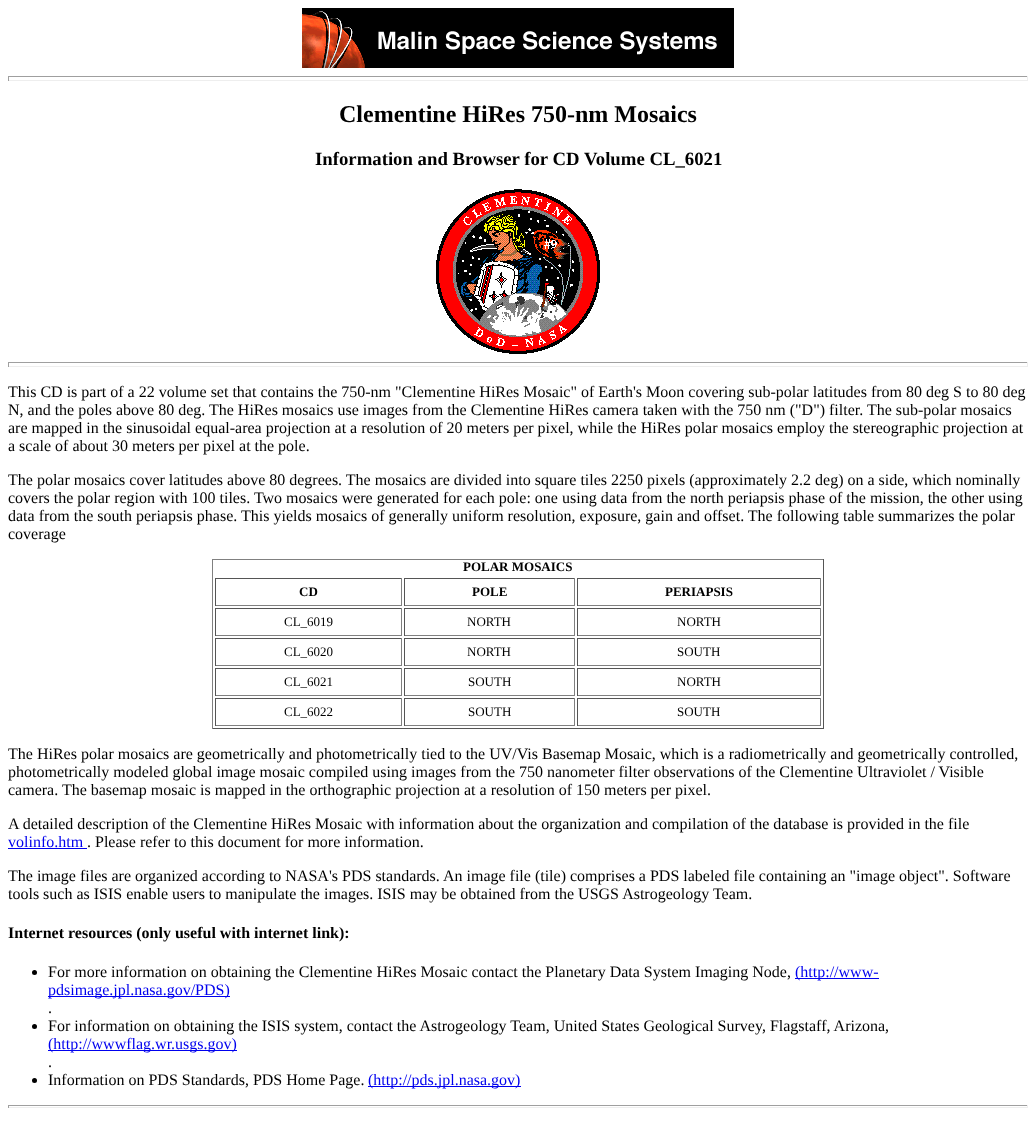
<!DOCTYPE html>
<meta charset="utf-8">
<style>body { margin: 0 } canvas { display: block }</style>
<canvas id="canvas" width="1036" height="1128"></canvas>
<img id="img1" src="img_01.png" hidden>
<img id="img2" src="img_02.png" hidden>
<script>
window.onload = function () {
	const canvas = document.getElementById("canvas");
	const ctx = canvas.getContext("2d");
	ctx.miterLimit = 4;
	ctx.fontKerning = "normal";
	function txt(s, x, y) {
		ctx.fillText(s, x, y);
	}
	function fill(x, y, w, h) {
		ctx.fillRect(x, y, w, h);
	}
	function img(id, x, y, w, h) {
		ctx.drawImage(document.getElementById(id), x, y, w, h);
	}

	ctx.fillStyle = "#FFFFFF";
	fill(0, 0, 1036, 1128);
	img("img1", 302, 8, 432, 60);
	ctx.fillStyle = "#9F9F9F";
	fill(8, 76, 1020, 1);
	ctx.fillStyle = "#EEEEEE";
	fill(1027, 76, 1, 5);
	fill(8, 80, 1020, 1);
	ctx.fillStyle = "#9F9F9F";
	fill(8, 76, 1, 5);
	img("img2", 436, 189, 164, 165);
	fill(8, 362, 1020, 1);
	ctx.fillStyle = "#EEEEEE";
	fill(1027, 362, 1, 5);
	fill(8, 366, 1020, 1);
	ctx.fillStyle = "#9F9F9F";
	fill(8, 362, 1, 5);
	ctx.fillStyle = "#808080";
	fill(212, 559, 612, 1);
	ctx.fillStyle = "#555555";
	fill(823, 559, 1, 170);
	fill(212, 728, 612, 1);
	ctx.fillStyle = "#808080";
	fill(212, 559, 1, 170);
	ctx.fillStyle = "#555555";
	fill(215, 578, 187, 1);
	ctx.fillStyle = "#808080";
	fill(401, 578, 1, 28);
	fill(215, 605, 187, 1);
	ctx.fillStyle = "#555555";
	fill(215, 578, 1, 28);
	fill(404, 578, 171, 1);
	ctx.fillStyle = "#808080";
	fill(574, 578, 1, 28);
	fill(404, 605, 171, 1);
	ctx.fillStyle = "#555555";
	fill(404, 578, 1, 28);
	fill(577, 578, 244, 1);
	ctx.fillStyle = "#808080";
	fill(820, 578, 1, 28);
	fill(577, 605, 244, 1);
	ctx.fillStyle = "#555555";
	fill(577, 578, 1, 28);
	fill(215, 608, 187, 1);
	ctx.fillStyle = "#808080";
	fill(401, 608, 1, 28);
	fill(215, 635, 187, 1);
	ctx.fillStyle = "#555555";
	fill(215, 608, 1, 28);
	fill(404, 608, 171, 1);
	ctx.fillStyle = "#808080";
	fill(574, 608, 1, 28);
	fill(404, 635, 171, 1);
	ctx.fillStyle = "#555555";
	fill(404, 608, 1, 28);
	fill(577, 608, 244, 1);
	ctx.fillStyle = "#808080";
	fill(820, 608, 1, 28);
	fill(577, 635, 244, 1);
	ctx.fillStyle = "#555555";
	fill(577, 608, 1, 28);
	fill(215, 638, 187, 1);
	ctx.fillStyle = "#808080";
	fill(401, 638, 1, 28);
	fill(215, 665, 187, 1);
	ctx.fillStyle = "#555555";
	fill(215, 638, 1, 28);
	fill(404, 638, 171, 1);
	ctx.fillStyle = "#808080";
	fill(574, 638, 1, 28);
	fill(404, 665, 171, 1);
	ctx.fillStyle = "#555555";
	fill(404, 638, 1, 28);
	fill(577, 638, 244, 1);
	ctx.fillStyle = "#808080";
	fill(820, 638, 1, 28);
	fill(577, 665, 244, 1);
	ctx.fillStyle = "#555555";
	fill(577, 638, 1, 28);
	fill(215, 668, 187, 1);
	ctx.fillStyle = "#808080";
	fill(401, 668, 1, 28);
	fill(215, 695, 187, 1);
	ctx.fillStyle = "#555555";
	fill(215, 668, 1, 28);
	fill(404, 668, 171, 1);
	ctx.fillStyle = "#808080";
	fill(574, 668, 1, 28);
	fill(404, 695, 171, 1);
	ctx.fillStyle = "#555555";
	fill(404, 668, 1, 28);
	fill(577, 668, 244, 1);
	ctx.fillStyle = "#808080";
	fill(820, 668, 1, 28);
	fill(577, 695, 244, 1);
	ctx.fillStyle = "#555555";
	fill(577, 668, 1, 28);
	fill(215, 698, 187, 1);
	ctx.fillStyle = "#808080";
	fill(401, 698, 1, 28);
	fill(215, 725, 187, 1);
	ctx.fillStyle = "#555555";
	fill(215, 698, 1, 28);
	fill(404, 698, 171, 1);
	ctx.fillStyle = "#808080";
	fill(574, 698, 1, 28);
	fill(404, 725, 171, 1);
	ctx.fillStyle = "#555555";
	fill(404, 698, 1, 28);
	fill(577, 698, 244, 1);
	ctx.fillStyle = "#808080";
	fill(820, 698, 1, 28);
	fill(577, 725, 244, 1);
	ctx.fillStyle = "#555555";
	fill(577, 698, 1, 28);
	ctx.fillStyle = "#0000EE";
	fill(8, 848, 79, 1);
	ctx.fillStyle = "#000000";
	ctx.beginPath();
	ctx.arc(34.5, 972.5, 2.5, 0, Math.PI * 2);
	ctx.fill();
	ctx.fillStyle = "#0000EE";
	fill(795, 978, 84, 1);
	fill(48, 996, 182, 1);
	ctx.fillStyle = "#000000";
	ctx.beginPath();
	ctx.arc(34.5, 1026.5, 2.5, 0, Math.PI * 2);
	ctx.fill();
	ctx.fillStyle = "#0000EE";
	fill(48, 1050, 189, 1);
	ctx.fillStyle = "#000000";
	ctx.beginPath();
	ctx.arc(34.5, 1080.5, 2.5, 0, Math.PI * 2);
	ctx.fill();
	ctx.fillStyle = "#0000EE";
	fill(368, 1086, 153, 1);
	ctx.fillStyle = "#9F9F9F";
	fill(8, 1105, 1020, 1);
	ctx.fillStyle = "#EEEEEE";
	fill(1027, 1105, 1, 3);
	fill(8, 1107, 1020, 1);
	ctx.fillStyle = "#9F9F9F";
	fill(8, 1105, 1, 3);
	ctx.font = "bold 24px Liberation Serif";
	ctx.fillStyle = "#000000";
	txt("Clementine HiRes 750-nm Mosaics", 339, 122);
	ctx.font = "bold 18.75px Liberation Serif";
	txt("Information and Browser for CD Volume CL_6021", 315, 165);
	ctx.font = "16px Liberation Serif";
	txt("This CD is part of a 22 volume set that contains the 750-nm \"Clementine HiRes Mosaic\" of Earth's Moon covering sub-polar latitudes from 80 deg S to 80 deg", 8, 397);
	txt("N, and the poles above 80 deg. The HiRes mosaics use images from the Clementine HiRes camera taken with the 750 nm (\"D\") filter. The sub-polar mosaics", 8, 415);
	txt("are mapped in the sinusoidal equal-area projection at a resolution of 20 meters per pixel, while the HiRes polar mosaics employ the stereographic projection at", 8, 433);
	txt("a scale of about 30 meters per pixel at the pole.", 8, 451);
	txt("The polar mosaics cover latitudes above 80 degrees. The mosaics are divided into square tiles 2250 pixels (approximately 2.2 deg) on a side, which nominally", 8, 485);
	txt("covers the polar region with 100 tiles. Two mosaics were generated for each pole: one using data from the north periapsis phase of the mission, the other using", 8, 503);
	txt("data from the south periapsis phase. This yields mosaics of generally uniform resolution, exposure, gain and offset. The following table summarizes the polar", 8, 521);
	txt("coverage", 8, 539);
	ctx.font = "bold 13px Liberation Serif";
	txt("POLAR MOSAICS", 463, 571);
	txt("CD", 299, 596);
	txt("POLE", 472, 596);
	txt("PERIAPSIS", 665, 596);
	ctx.font = "13px Liberation Serif";
	txt("CL_6019", 284, 626);
	txt("NORTH", 467, 626);
	txt("NORTH", 677, 626);
	txt("CL_6020", 284, 656);
	txt("NORTH", 467, 656);
	txt("SOUTH", 677, 656);
	txt("CL_6021", 284, 686);
	txt("SOUTH", 468, 686);
	txt("NORTH", 677, 686);
	txt("CL_6022", 284, 716);
	txt("SOUTH", 468, 716);
	txt("SOUTH", 677, 716);
	ctx.font = "16px Liberation Serif";
	txt("The HiRes polar mosaics are geometrically and photometrically tied to the UV/Vis Basemap Mosaic, which is a radiometrically and geometrically controlled,", 8, 759);
	txt("photometrically modeled global image mosaic compiled using images from the 750 nanometer filter observations of the Clementine Ultraviolet / Visible", 8, 777);
	txt("camera. The basemap mosaic is mapped in the orthographic projection at a resolution of 150 meters per pixel.", 8, 795);
	txt("A detailed description of the Clementine HiRes Mosaic with information about the organization and compilation of the database is provided in the file", 8, 829);
	ctx.fillStyle = "#0000EE";
	txt("volinfo.htm", 8, 847);
	ctx.fillStyle = "#000000";
	txt(". Please refer to this document for more information.", 87, 847);
	txt("The image files are organized according to NASA's PDS standards. An image file (tile) comprises a PDS labeled file containing an \"image object\". Software", 8, 881);
	txt("tools such as ISIS enable users to manipulate the images. ISIS may be obtained from the USGS Astrogeology Team.", 8, 899);
	ctx.font = "bold 16px Liberation Serif";
	txt("Internet resources (only useful with internet link):", 8, 938);
	ctx.font = "16px Liberation Serif";
	txt("For more information on obtaining the Clementine HiRes Mosaic contact the Planetary Data System Imaging Node,", 48, 977);
	ctx.fillStyle = "#0000EE";
	txt("(http://www-", 795, 977);
	txt("pdsimage.jpl.nasa.gov/PDS)", 48, 995);
	ctx.fillStyle = "#000000";
	txt(".", 48, 1013);
	txt("For information on obtaining the ISIS system, contact the Astrogeology Team, United States Geological Survey, Flagstaff, Arizona,", 48, 1031);
	ctx.fillStyle = "#0000EE";
	txt("(http://wwwflag.wr.usgs.gov)", 48, 1049);
	ctx.fillStyle = "#000000";
	txt(".", 48, 1067);
	txt("Information on PDS Standards, PDS Home Page.", 48, 1085);
	ctx.fillStyle = "#0000EE";
	txt("(http://pds.jpl.nasa.gov)", 368, 1085);
};
</script>
